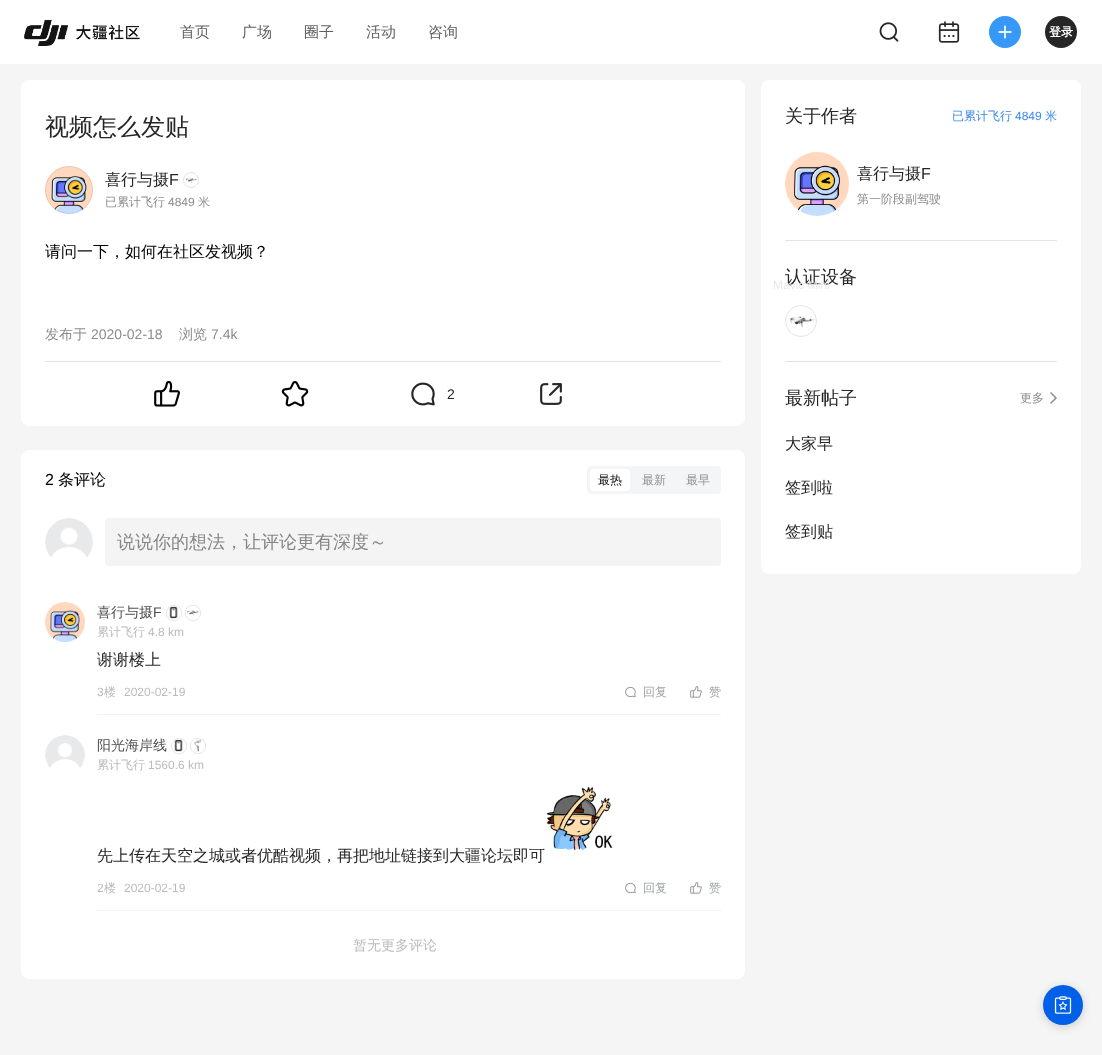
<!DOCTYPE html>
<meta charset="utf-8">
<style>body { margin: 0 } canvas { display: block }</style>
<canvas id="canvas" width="1102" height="1055"></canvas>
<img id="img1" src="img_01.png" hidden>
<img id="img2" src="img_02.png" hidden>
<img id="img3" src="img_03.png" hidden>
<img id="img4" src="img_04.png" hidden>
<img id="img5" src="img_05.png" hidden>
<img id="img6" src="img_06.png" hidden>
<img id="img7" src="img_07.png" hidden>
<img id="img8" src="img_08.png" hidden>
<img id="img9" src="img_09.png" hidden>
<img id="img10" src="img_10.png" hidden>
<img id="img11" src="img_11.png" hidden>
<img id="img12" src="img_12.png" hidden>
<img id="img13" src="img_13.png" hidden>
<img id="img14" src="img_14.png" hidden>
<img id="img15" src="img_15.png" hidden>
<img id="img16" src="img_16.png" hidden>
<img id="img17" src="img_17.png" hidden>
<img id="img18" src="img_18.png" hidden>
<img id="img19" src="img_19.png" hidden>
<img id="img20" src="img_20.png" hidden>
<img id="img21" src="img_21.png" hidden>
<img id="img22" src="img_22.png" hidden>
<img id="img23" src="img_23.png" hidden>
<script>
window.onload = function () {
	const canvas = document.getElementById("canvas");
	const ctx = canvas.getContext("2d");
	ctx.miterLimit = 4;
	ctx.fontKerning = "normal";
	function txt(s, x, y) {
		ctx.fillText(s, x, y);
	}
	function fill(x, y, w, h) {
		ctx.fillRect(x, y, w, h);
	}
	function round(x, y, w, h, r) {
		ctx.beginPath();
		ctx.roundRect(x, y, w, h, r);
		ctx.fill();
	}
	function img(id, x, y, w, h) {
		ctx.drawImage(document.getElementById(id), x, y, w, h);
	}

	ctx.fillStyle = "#F5F5F5";
	fill(0, 0, 1102, 1055);
	ctx.fillStyle = "#FFFFFF";
	fill(0, 0, 1102, 64);
	img("img1", 24, 19, 116, 27);
	img("img2", 879, 22, 20, 20);
	img("img3", 938, 21, 22, 22);
	ctx.fillStyle = "#3798FA";
	ctx.beginPath();
	ctx.arc(1005, 32, 16, 0, Math.PI * 2);
	ctx.fill();
	img("img4", 998, 25, 14, 14);
	ctx.fillStyle = "#262626";
	ctx.beginPath();
	ctx.arc(1061, 32, 16, 0, Math.PI * 2);
	ctx.fill();
	ctx.fillStyle = "#FFFFFF";
	round(21, 80, 724, 346, 8);
	img("img5", 45, 166, 48, 48);
	ctx.beginPath();
	ctx.arc(69, 190, 23.5, 0, Math.PI * 2);
	ctx.strokeStyle = "rgba(0, 0, 0, 0.08)";
	ctx.stroke();
	ctx.beginPath();
	ctx.arc(191, 180, 7.5, 0, Math.PI * 2);
	ctx.strokeStyle = "#E4E4E4";
	ctx.stroke();
	img("img6", 185, 177, 13, 6);
	ctx.fillStyle = "#E4E4E4";
	fill(45, 361, 676, 1);
	img("img7", 154, 380, 26, 27);
	img("img8", 281, 381, 28, 26);
	img("img9", 411, 382, 24, 24);
	img("img10", 540, 383, 22, 22);
	ctx.fillStyle = "#FFFFFF";
	round(21, 450, 724, 529, 8);
	ctx.fillStyle = "#F4F5F7";
	round(587, 466, 134, 28, 4);
	ctx.fillStyle = "#FFFFFF";
	round(590, 469, 40, 22, 4);
	img("img11", 45, 518, 48, 40);
	ctx.fillStyle = "#F4F4F4";
	round(105, 518, 616, 48, 4);
	img("img12", 45, 602, 40, 40);
	ctx.beginPath();
	ctx.arc(174, 613, 7.75, 0, Math.PI * 2);
	ctx.strokeStyle = "#CECECE";
	ctx.lineWidth = 0.5;
	ctx.stroke();
	img("img13", 169, 606, 9, 13);
	ctx.beginPath();
	ctx.arc(193, 613, 7.75, 0, Math.PI * 2);
	ctx.stroke();
	img("img14", 186, 610, 14, 6);
	img("img15", 625, 686, 11, 12);
	img("img16", 690, 686, 12, 12);
	ctx.fillStyle = "#F0F2F5";
	fill(97, 714, 624, 1);
	img("img17", 45, 735, 40, 33);
	ctx.beginPath();
	ctx.arc(179, 746, 7.75, 0, Math.PI * 2);
	ctx.stroke();
	img("img13", 174, 739, 9, 13);
	ctx.beginPath();
	ctx.arc(198, 746, 7.75, 0, Math.PI * 2);
	ctx.stroke();
	img("img18", 194, 739, 8, 13);
	img("img19", 546, 786, 67, 65);
	img("img15", 625, 882, 11, 12);
	img("img16", 690, 882, 12, 12);
	fill(97, 910, 624, 1);
	ctx.fillStyle = "#FFFFFF";
	round(761, 80, 320, 494, 8);
	img("img20", 785, 152, 64, 64);
	ctx.fillStyle = "#E4E4E4";
	fill(785, 240, 272, 1);
	ctx.beginPath();
	ctx.arc(801, 321, 15.5, 0, Math.PI * 2);
	ctx.strokeStyle = "#E4E4E4";
	ctx.lineWidth = 1;
	ctx.stroke();
	img("img21", 789, 316, 27, 11);
	fill(785, 361, 272, 1);
	img("img22", 1050, 392, 7, 12);
	ctx.fillStyle = "rgba(0, 0, 0, 0.16)";
	ctx.filter = "blur(5px)";
	ctx.beginPath();
	ctx.roundRect(1043, 987, 40, 40, 20);
	ctx.fill();
	ctx.filter = "none";
	ctx.fillStyle = "#0060E7";
	ctx.beginPath();
	ctx.arc(1063, 1005, 20, 0, Math.PI * 2);
	ctx.fill();
	img("img23", 1054, 996, 18, 18);
	ctx.font = "500 15px WenQuanYi Zen Hei";
	ctx.fillStyle = "#5E6262";
	txt("首页", 180, 37);
	txt("广场", 242, 37);
	txt("圈子", 304, 37);
	txt("活动", 366, 37);
	txt("咨询", 428, 37);
	ctx.font = "bold 12px WenQuanYi Zen Hei";
	ctx.fillStyle = "#FFFFFF";
	txt("登录", 1049, 36);
	ctx.font = "500 24px WenQuanYi Zen Hei";
	ctx.fillStyle = "#262626";
	txt("视频怎么发贴", 45, 135);
	ctx.font = "500 16px WenQuanYi Zen Hei";
	txt("喜行与摄", 105, 185);
	ctx.font = "16px Liberation Sans";
	txt("F", 169, 185);
	ctx.font = "500 12px WenQuanYi Zen Hei";
	ctx.fillStyle = "#8C8C8C";
	txt("已累计飞行", 105, 206);
	ctx.font = "12px Liberation Sans";
	txt("4849", 168, 206);
	ctx.font = "500 12px WenQuanYi Zen Hei";
	txt("米", 198, 206);
	ctx.font = "500 16px WenQuanYi Zen Hei";
	ctx.fillStyle = "#000000";
	txt("请问一下，如何在社区发视频？", 45, 257);
	ctx.font = "500 14px WenQuanYi Zen Hei";
	ctx.fillStyle = "#8C8C8C";
	txt("发布于", 45, 339);
	ctx.font = "14px Liberation Sans";
	txt("2020-02-18", 91, 339);
	ctx.font = "500 14px WenQuanYi Zen Hei";
	txt("浏览", 179, 339);
	ctx.font = "14px Liberation Sans";
	txt("7.4k", 211, 339);
	ctx.fillStyle = "#262626";
	txt("2", 447, 399);
	ctx.font = "16px Liberation Sans";
	ctx.fillStyle = "#000000";
	txt("2", 45, 485);
	ctx.font = "500 16px WenQuanYi Zen Hei";
	txt("条评论", 58, 485);
	ctx.font = "500 12px WenQuanYi Zen Hei";
	ctx.fillStyle = "#0C0C0C";
	txt("最热", 598, 484);
	ctx.fillStyle = "#919294";
	txt("最新", 642, 484);
	txt("最早", 686, 484);
	ctx.font = "500 18px WenQuanYi Zen Hei";
	ctx.fillStyle = "#868686";
	txt("说说你的想法，让评论更有深度～", 117, 548);
	ctx.font = "500 14px WenQuanYi Zen Hei";
	ctx.fillStyle = "#4F4F52";
	txt("喜行与摄", 97, 617);
	ctx.font = "14px Liberation Sans";
	txt("F", 153, 617);
	ctx.font = "500 12px WenQuanYi Zen Hei";
	ctx.fillStyle = "#BABBBD";
	txt("累计飞行", 97, 636);
	ctx.font = "12px Liberation Sans";
	txt("4.8 km", 148, 636);
	ctx.font = "500 16px WenQuanYi Zen Hei";
	ctx.fillStyle = "#262626";
	txt("谢谢楼上", 97, 665);
	ctx.font = "12px Liberation Sans";
	ctx.fillStyle = "#BABBBD";
	txt("3", 97, 696);
	ctx.font = "500 12px WenQuanYi Zen Hei";
	txt("楼", 104, 696);
	ctx.font = "12px Liberation Sans";
	txt("2020-02-19", 124, 696);
	ctx.font = "500 12px WenQuanYi Zen Hei";
	ctx.fillStyle = "#A0A5A5";
	txt("回复", 643, 696);
	txt("赞", 709, 696);
	ctx.font = "500 14px WenQuanYi Zen Hei";
	ctx.fillStyle = "#4F4F52";
	txt("阳光海岸线", 97, 750);
	ctx.font = "500 12px WenQuanYi Zen Hei";
	ctx.fillStyle = "#BABBBD";
	txt("累计飞行", 97, 769);
	ctx.font = "12px Liberation Sans";
	txt("1560.6 km", 148, 769);
	ctx.font = "500 16px WenQuanYi Zen Hei";
	ctx.fillStyle = "#262626";
	txt("先上传在天空之城或者优酷视频，再把地址链接到大疆论坛即可", 97, 861);
	ctx.font = "12px Liberation Sans";
	ctx.fillStyle = "#BABBBD";
	txt("2", 97, 892);
	ctx.font = "500 12px WenQuanYi Zen Hei";
	txt("楼", 104, 892);
	ctx.font = "12px Liberation Sans";
	txt("2020-02-19", 124, 892);
	ctx.font = "500 12px WenQuanYi Zen Hei";
	ctx.fillStyle = "#A0A5A5";
	txt("回复", 643, 892);
	txt("赞", 709, 892);
	ctx.font = "500 14px WenQuanYi Zen Hei";
	ctx.fillStyle = "#BABBBD";
	txt("暂无更多评论", 353, 950);
	ctx.font = "500 18px WenQuanYi Zen Hei";
	ctx.fillStyle = "#262626";
	txt("关于作者", 785, 122);
	ctx.font = "500 12px WenQuanYi Zen Hei";
	ctx.fillStyle = "#3A89EA";
	txt("已累计飞行", 952, 120);
	ctx.font = "12px Liberation Sans";
	txt("4849", 1015, 120);
	ctx.font = "500 12px WenQuanYi Zen Hei";
	txt("米", 1045, 120);
	ctx.font = "500 16px WenQuanYi Zen Hei";
	ctx.fillStyle = "#262626";
	txt("喜行与摄", 857, 179);
	ctx.font = "16px Liberation Sans";
	txt("F", 921, 179);
	ctx.font = "500 12px WenQuanYi Zen Hei";
	ctx.fillStyle = "#8C8C8C";
	txt("第一阶段副驾驶", 857, 203);
	ctx.font = "500 18px WenQuanYi Zen Hei";
	ctx.fillStyle = "#262626";
	txt("认证设备", 785, 283);
	ctx.font = "12px Liberation Sans";
	ctx.fillStyle = "#E8E8E8";
	txt("Mavic Mini", 773, 289);
	ctx.font = "500 18px WenQuanYi Zen Hei";
	ctx.fillStyle = "#262626";
	txt("最新帖子", 785, 404);
	ctx.font = "500 12px WenQuanYi Zen Hei";
	ctx.fillStyle = "#8C8C8C";
	txt("更多", 1020, 402);
	ctx.font = "500 16px WenQuanYi Zen Hei";
	ctx.fillStyle = "#262626";
	txt("大家早", 785, 449);
	txt("签到啦", 785, 493);
	txt("签到贴", 785, 537);
};
</script>
